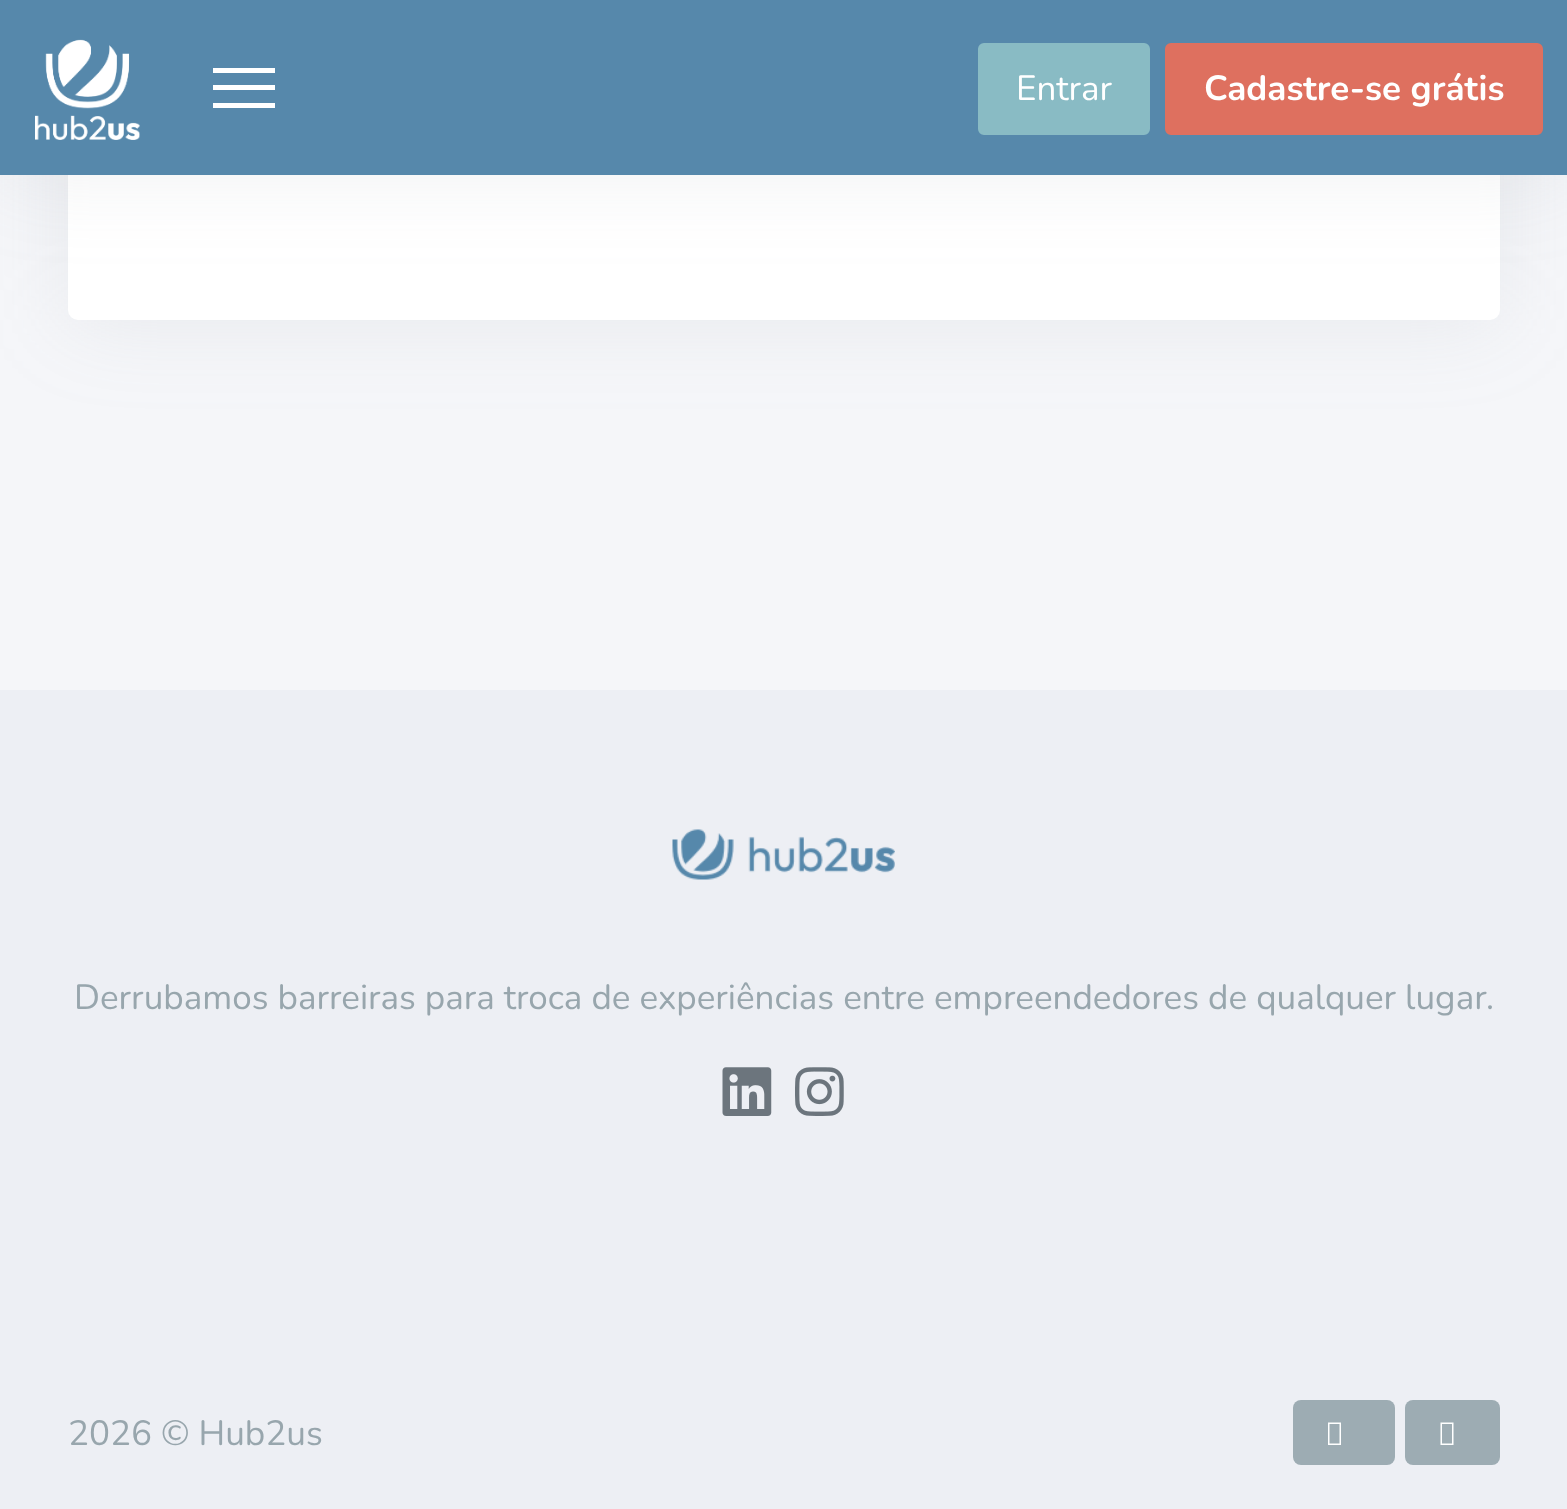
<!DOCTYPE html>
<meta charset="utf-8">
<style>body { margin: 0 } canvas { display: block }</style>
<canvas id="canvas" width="1567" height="1509"></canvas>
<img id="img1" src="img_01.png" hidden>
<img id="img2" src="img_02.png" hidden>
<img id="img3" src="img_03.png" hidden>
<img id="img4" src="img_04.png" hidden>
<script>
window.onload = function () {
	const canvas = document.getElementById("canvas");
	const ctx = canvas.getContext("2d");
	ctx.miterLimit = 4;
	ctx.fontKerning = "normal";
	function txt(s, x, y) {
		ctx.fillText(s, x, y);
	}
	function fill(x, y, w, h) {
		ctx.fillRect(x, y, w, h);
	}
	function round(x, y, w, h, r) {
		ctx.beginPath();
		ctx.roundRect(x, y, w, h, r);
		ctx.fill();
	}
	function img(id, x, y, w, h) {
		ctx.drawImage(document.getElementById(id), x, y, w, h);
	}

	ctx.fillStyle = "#F5F6F9";
	fill(0, 0, 1567, 1509);
	ctx.fillStyle = "rgba(154, 161, 171, 0.15)";
	ctx.filter = "blur(44px)";
	ctx.beginPath();
	ctx.roundRect(68, -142, 1432, 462, 10);
	ctx.fill();
	ctx.filter = "none";
	ctx.fillStyle = "#FFFFFF";
	round(68, -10, 1432, 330, 10);
	ctx.fillStyle = "rgba(154, 161, 171, 0.15)";
	ctx.filter = "blur(44px)";
	ctx.beginPath();
	ctx.rect(0, 0, 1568, 175);
	ctx.fill();
	ctx.filter = "none";
	ctx.fillStyle = "#5688AB";
	fill(0, 0, 1567, 175);
	img("img1", 35, 39, 105, 101);
	ctx.fillStyle = "#FFFFFF";
	fill(213, 68, 62, 5);
	fill(213, 85, 62, 5);
	fill(213, 103, 62, 5);
	ctx.fillStyle = "#89BBC4";
	ctx.beginPath();
	ctx.roundRect(979.5, 44.5, 169, 89, 4.5);
	ctx.fill();
	ctx.strokeStyle = "#89BBC4";
	ctx.lineWidth = 3;
	ctx.stroke();
	ctx.fillStyle = "#DE705F";
	ctx.beginPath();
	ctx.roundRect(1166.5, 44.5, 375, 89, 4.5);
	ctx.fill();
	ctx.strokeStyle = "#DE705F";
	ctx.stroke();
	ctx.fillStyle = "#EDEFF4";
	fill(0, 690, 1567, 819);
	img("img2", 672, 829, 223, 51);
	img("img3", 722, 1067, 50, 49);
	img("img4", 795, 1067, 49, 49);
	ctx.fillStyle = "#9DACB3";
	round(1293, 1400, 102, 65, 8);
	ctx.fillStyle = "#FFFFFF";
	ctx.beginPath();
	ctx.moveTo(1328, 1445);
	ctx.lineTo(1328, 1422.5);
	ctx.lineTo(1341, 1422.5);
	ctx.lineTo(1341, 1445);
	ctx.closePath();
	ctx.moveTo(1329.5, 1443.5);
	ctx.lineTo(1339.5, 1443.5);
	ctx.lineTo(1339.5, 1424);
	ctx.lineTo(1329.5, 1424);
	ctx.closePath();
	ctx.fill();
	ctx.fillStyle = "#9DACB3";
	round(1405, 1400, 95, 65, 8);
	ctx.fillStyle = "#FFFFFF";
	ctx.beginPath();
	ctx.moveTo(1440.5, 1445);
	ctx.lineTo(1440.5, 1422.5);
	ctx.lineTo(1453.5, 1422.5);
	ctx.lineTo(1453.5, 1445);
	ctx.closePath();
	ctx.moveTo(1442, 1443.5);
	ctx.lineTo(1452, 1443.5);
	ctx.lineTo(1452, 1424);
	ctx.lineTo(1442, 1424);
	ctx.closePath();
	ctx.fill();
	ctx.font = "35px Nunito";
	txt("Entrar", 1016, 100);
	ctx.font = "bold 35px Nunito";
	txt("Cadastre-se grátis", 1204, 100);
	ctx.font = "35px Nunito";
	ctx.fillStyle = "#98A6AD";
	txt("Derrubamos barreiras para troca de experiências entre empreendedores de qualquer lugar.", 74, 1009);
	txt("2026 © Hub2us", 68, 1445);
};
</script>
